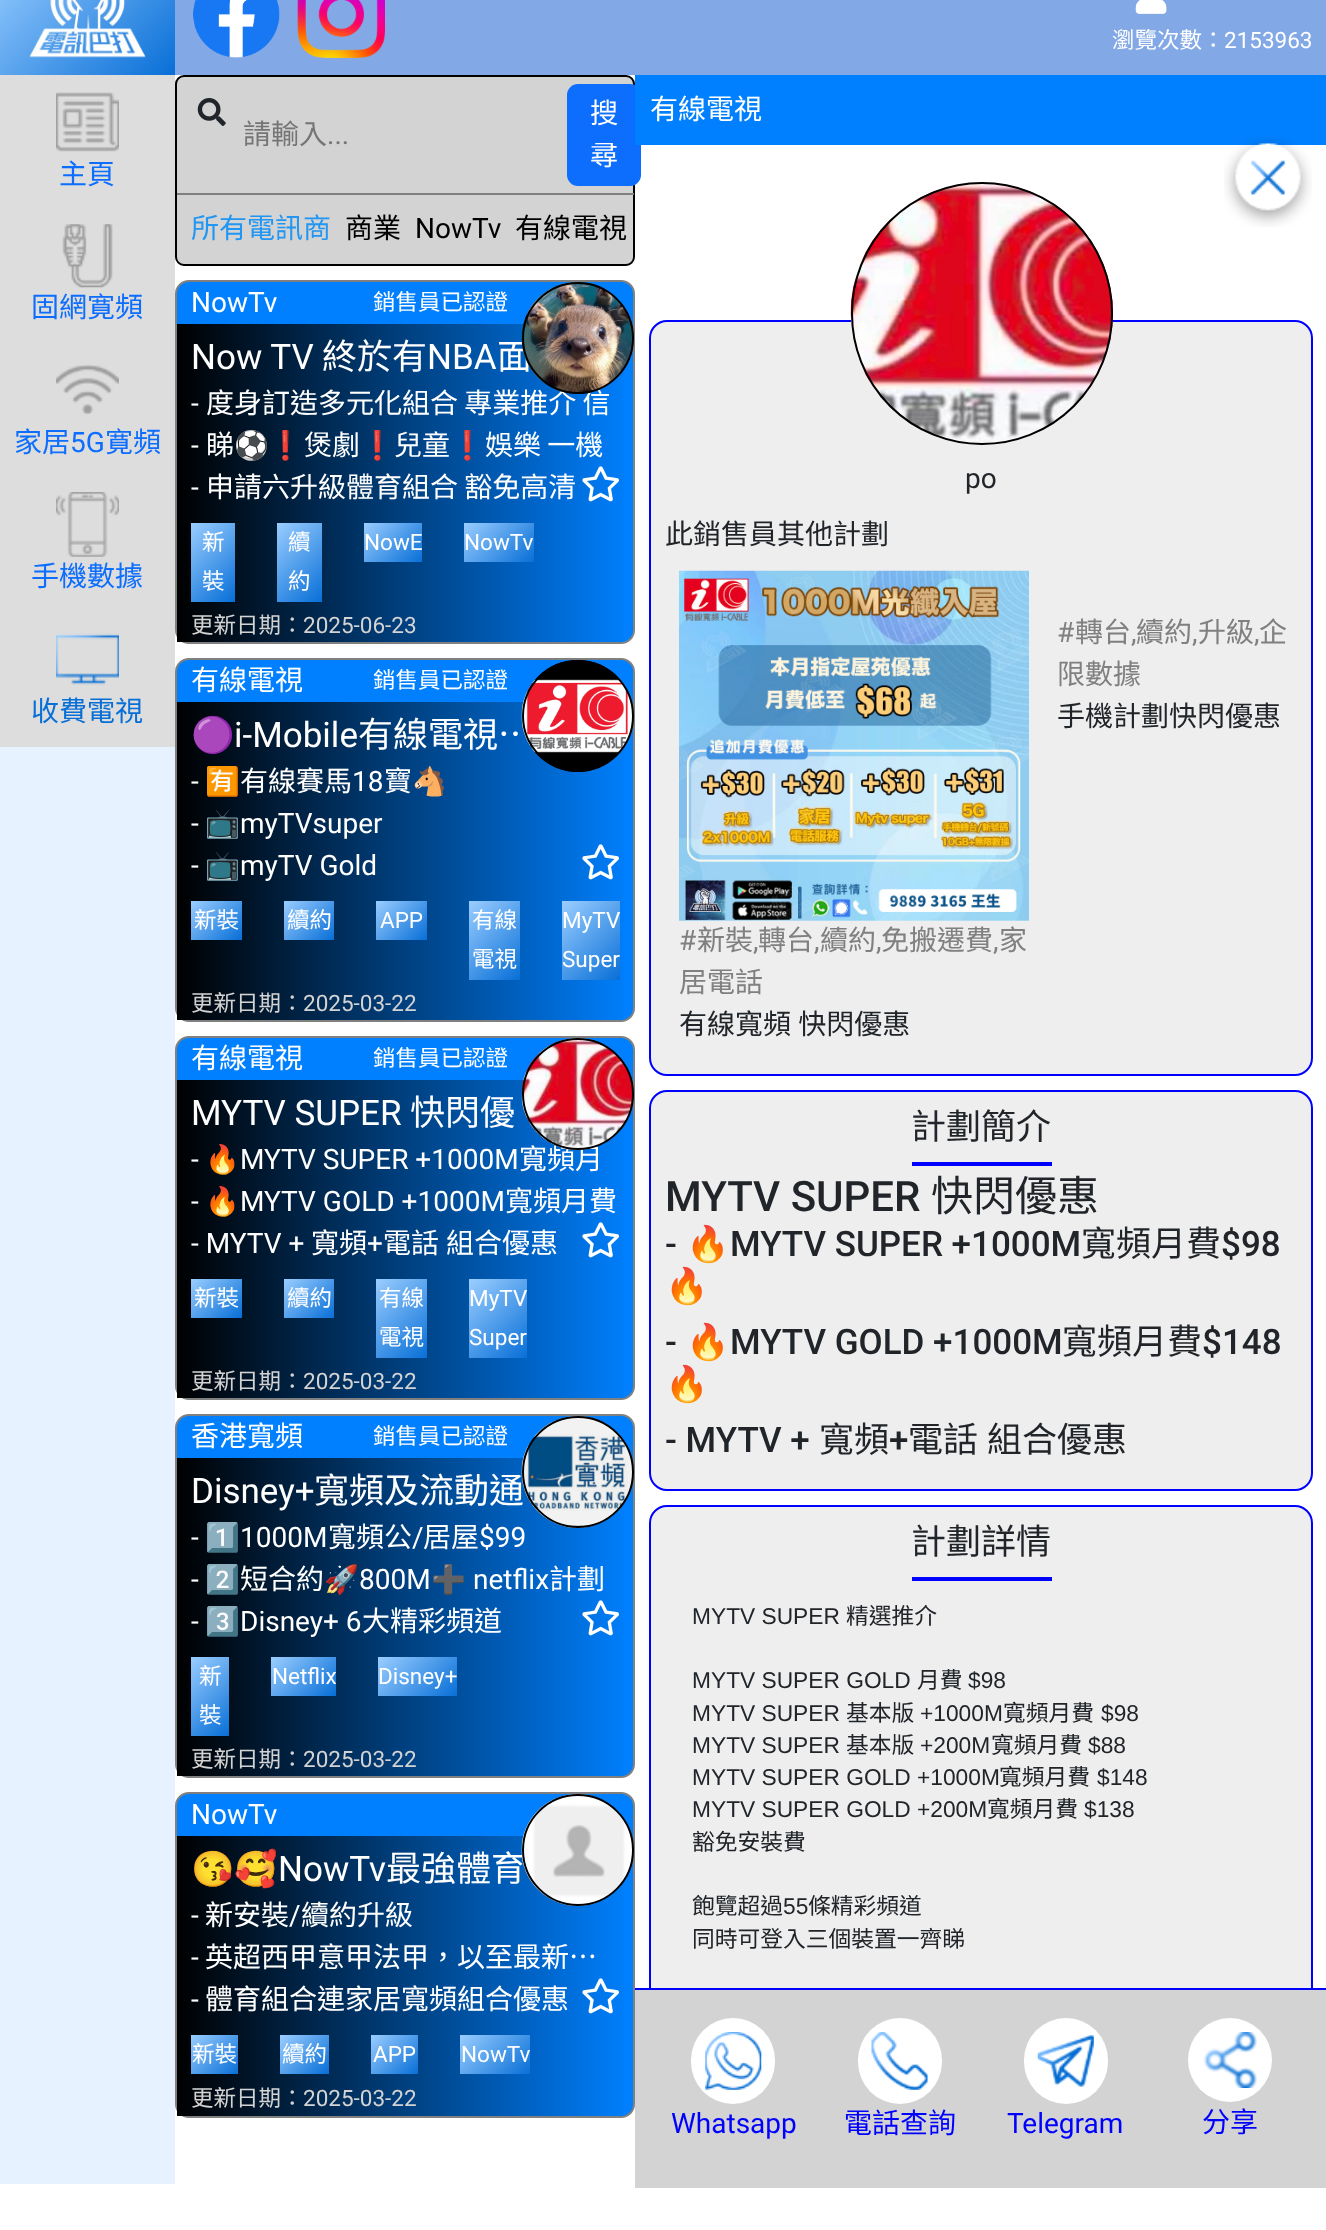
<!DOCTYPE html>
<meta charset="utf-8">
<style>body { margin: 0 } canvas { display: block }</style>
<canvas id="canvas" width="1326" height="2230"></canvas>
<img id="img1" src="img_01.png" hidden>
<img id="img2" src="img_02.png" hidden>
<img id="img3" src="img_03.png" hidden>
<img id="img4" src="img_04.png" hidden>
<img id="img5" src="img_05.png" hidden>
<img id="img6" src="img_06.png" hidden>
<img id="img7" src="img_07.png" hidden>
<img id="img8" src="img_08.png" hidden>
<img id="img9" src="img_09.png" hidden>
<img id="img10" src="img_10.png" hidden>
<img id="img11" src="img_12.png" hidden>
<img id="img12" src="img_17.png" hidden>
<img id="img13" src="img_18.png" hidden>
<img id="img14" src="img_19.png" hidden>
<img id="img15" src="img_20.png" hidden>
<img id="img16" src="img_21.png" hidden>
<img id="img17" src="img_22.png" hidden>
<img id="img18" src="img_23.png" hidden>
<img id="img19" src="img_11.png" hidden>
<img id="img20" src="img_13.png" hidden>
<img id="img21" src="img_14.png" hidden>
<img id="img22" src="img_15.png" hidden>
<img id="img23" src="img_16.png" hidden>
<script>
window.onload = function () {
	const canvas = document.getElementById("canvas");
	const ctx = canvas.getContext("2d");
	ctx.miterLimit = 4;
	ctx.fontKerning = "normal";
	function txt(s, x, y) {
		ctx.fillText(s, x, y);
	}
	function fill(x, y, w, h) {
		ctx.fillRect(x, y, w, h);
	}
	function round(x, y, w, h, r) {
		ctx.beginPath();
		ctx.roundRect(x, y, w, h, r);
		ctx.fill();
	}
	function img(id, x, y, w, h) {
		ctx.drawImage(document.getElementById(id), x, y, w, h);
	}
	let gradient;

	ctx.fillStyle = "#FFFFFF";
	fill(0, 0, 1326, 2230);
	ctx.fillStyle = "#E6F2FF";
	fill(0, 747, 175, 1437);
	gradient = ctx.createLinearGradient(13, -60, 162, 88);
	gradient.addColorStop(0, "#9ACDFF");
	gradient.addColorStop(1, "#086FD7");
	ctx.fillStyle = gradient;
	fill(0, 0, 175, 75);
	img("img1", 29, 0, 117, 58);
	ctx.fillStyle = "#DDDDDD";
	fill(0, 75, 175, 672);
	img("img2", 56, 92, 63, 60);
	img("img3", 62, 224, 51, 64);
	img("img4", 56, 364, 63, 51);
	img("img5", 56, 492, 63, 65);
	img("img6", 56, 633, 63, 52);
	ctx.fillStyle = "#82A8E6";
	fill(175, 0, 1151, 75);
	img("img7", 193, 0, 87, 58);
	img("img8", 297, 0, 88, 58);
	img("img9", 1135, 0, 32, 14);
	ctx.fillStyle = "#D3D3D3";
	ctx.beginPath();
	ctx.roundRect(176, 76, 458, 189, 8);
	ctx.fill();
	ctx.strokeStyle = "#000000";
	ctx.lineWidth = 2;
	ctx.stroke();
	ctx.fillStyle = "#808080";
	fill(177, 193, 457, 2);
	img("img10", 197, 98, 29, 28);
	ctx.fillStyle = "#0D6EFD";
	ctx.beginPath();
	ctx.roundRect(568, 85, 72, 100, 10);
	ctx.fill();
	ctx.strokeStyle = "#0D6EFD";
	ctx.stroke();
	ctx.fillStyle = "#0080FF";
	ctx.beginPath();
	ctx.roundRect(176, 281, 458, 362, 13);
	ctx.fill();
	ctx.strokeStyle = "#808080";
	ctx.stroke();
	gradient = ctx.createLinearGradient(177, 483, 634, 483);
	gradient.addColorStop(0, "#000000");
	gradient.addColorStop(1, "rgba(0, 0, 0, 0)");
	ctx.fillStyle = gradient;
	fill(177, 324, 447, 318);
	img("img11", 582, 466, 37, 36);
	gradient = ctx.createLinearGradient(182, 532, 243, 593);
	gradient.addColorStop(0, "#9ACDFF");
	gradient.addColorStop(1, "#086FD7");
	ctx.fillStyle = gradient;
	fill(191, 523, 44, 79);
	gradient = ctx.createLinearGradient(268, 532, 330, 594);
	gradient.addColorStop(0, "#9ACDFF");
	gradient.addColorStop(1, "#086FD7");
	ctx.fillStyle = gradient;
	fill(277, 523, 45, 79);
	gradient = ctx.createLinearGradient(369, 518, 417, 567);
	gradient.addColorStop(0, "#9ACDFF");
	gradient.addColorStop(1, "#086FD7");
	ctx.fillStyle = gradient;
	fill(364, 523, 58, 39);
	gradient = ctx.createLinearGradient(472, 515, 526, 570);
	gradient.addColorStop(0, "#9ACDFF");
	gradient.addColorStop(1, "#086FD7");
	ctx.fillStyle = gradient;
	fill(464, 523, 70, 39);
	ctx.fillStyle = "#0080FF";
	ctx.beginPath();
	ctx.roundRect(176, 659, 458, 362, 13);
	ctx.fill();
	ctx.stroke();
	gradient = ctx.createLinearGradient(177, 861, 634, 861);
	gradient.addColorStop(0, "#000000");
	gradient.addColorStop(1, "rgba(0, 0, 0, 0)");
	ctx.fillStyle = gradient;
	fill(177, 702, 447, 318);
	img("img11", 582, 844, 37, 36);
	gradient = ctx.createLinearGradient(194, 898, 238, 943);
	gradient.addColorStop(0, "#9ACDFF");
	gradient.addColorStop(1, "#086FD7");
	ctx.fillStyle = gradient;
	fill(191, 901, 51, 39);
	gradient = ctx.createLinearGradient(287, 898, 331, 943);
	gradient.addColorStop(0, "#9ACDFF");
	gradient.addColorStop(1, "#086FD7");
	ctx.fillStyle = gradient;
	fill(284, 901, 50, 39);
	gradient = ctx.createLinearGradient(379, 898, 424, 943);
	gradient.addColorStop(0, "#9ACDFF");
	gradient.addColorStop(1, "#086FD7");
	ctx.fillStyle = gradient;
	fill(376, 901, 51, 39);
	gradient = ctx.createLinearGradient(462, 908, 527, 973);
	gradient.addColorStop(0, "#9ACDFF");
	gradient.addColorStop(1, "#086FD7");
	ctx.fillStyle = gradient;
	fill(469, 901, 51, 79);
	gradient = ctx.createLinearGradient(557, 907, 625, 975);
	gradient.addColorStop(0, "#9ACDFF");
	gradient.addColorStop(1, "#086FD7");
	ctx.fillStyle = gradient;
	fill(562, 901, 58, 79);
	ctx.fillStyle = "#0080FF";
	ctx.beginPath();
	ctx.roundRect(176, 1037, 458, 362, 13);
	ctx.fill();
	ctx.stroke();
	gradient = ctx.createLinearGradient(177, 1239, 634, 1239);
	gradient.addColorStop(0, "#000000");
	gradient.addColorStop(1, "rgba(0, 0, 0, 0)");
	ctx.fillStyle = gradient;
	fill(177, 1080, 447, 318);
	img("img11", 582, 1222, 37, 36);
	gradient = ctx.createLinearGradient(194, 1276, 238, 1321);
	gradient.addColorStop(0, "#9ACDFF");
	gradient.addColorStop(1, "#086FD7");
	ctx.fillStyle = gradient;
	fill(191, 1279, 51, 39);
	gradient = ctx.createLinearGradient(287, 1276, 331, 1321);
	gradient.addColorStop(0, "#9ACDFF");
	gradient.addColorStop(1, "#086FD7");
	ctx.fillStyle = gradient;
	fill(284, 1279, 50, 39);
	gradient = ctx.createLinearGradient(369, 1286, 434, 1351);
	gradient.addColorStop(0, "#9ACDFF");
	gradient.addColorStop(1, "#086FD7");
	ctx.fillStyle = gradient;
	fill(376, 1279, 51, 79);
	gradient = ctx.createLinearGradient(464, 1285, 532, 1353);
	gradient.addColorStop(0, "#9ACDFF");
	gradient.addColorStop(1, "#086FD7");
	ctx.fillStyle = gradient;
	fill(469, 1279, 58, 79);
	ctx.fillStyle = "#0080FF";
	ctx.beginPath();
	ctx.roundRect(176, 1415, 458, 362, 13);
	ctx.fill();
	ctx.stroke();
	gradient = ctx.createLinearGradient(177, 1617, 634, 1617);
	gradient.addColorStop(0, "#000000");
	gradient.addColorStop(1, "rgba(0, 0, 0, 0)");
	ctx.fillStyle = gradient;
	fill(177, 1458, 447, 318);
	img("img11", 582, 1600, 37, 36);
	gradient = ctx.createLinearGradient(181, 1667, 239, 1726);
	gradient.addColorStop(0, "#9ACDFF");
	gradient.addColorStop(1, "#086FD7");
	ctx.fillStyle = gradient;
	fill(191, 1657, 38, 79);
	gradient = ctx.createLinearGradient(278, 1651, 329, 1702);
	gradient.addColorStop(0, "#9ACDFF");
	gradient.addColorStop(1, "#086FD7");
	ctx.fillStyle = gradient;
	fill(271, 1657, 65, 39);
	gradient = ctx.createLinearGradient(388, 1647, 447, 1706);
	gradient.addColorStop(0, "#9ACDFF");
	gradient.addColorStop(1, "#086FD7");
	ctx.fillStyle = gradient;
	fill(378, 1657, 79, 39);
	ctx.fillStyle = "#0080FF";
	ctx.beginPath();
	ctx.roundRect(176, 1793, 458, 324, 13);
	ctx.fill();
	ctx.stroke();
	gradient = ctx.createLinearGradient(177, 1976, 634, 1976);
	gradient.addColorStop(0, "#000000");
	gradient.addColorStop(1, "rgba(0, 0, 0, 0)");
	ctx.fillStyle = gradient;
	fill(177, 1836, 447, 280);
	img("img11", 582, 1978, 37, 36);
	gradient = ctx.createLinearGradient(193, 2033, 236, 2076);
	gradient.addColorStop(0, "#9ACDFF");
	gradient.addColorStop(1, "#086FD7");
	ctx.fillStyle = gradient;
	fill(191, 2035, 47, 39);
	gradient = ctx.createLinearGradient(283, 2033, 326, 2076);
	gradient.addColorStop(0, "#9ACDFF");
	gradient.addColorStop(1, "#086FD7");
	ctx.fillStyle = gradient;
	fill(280, 2035, 49, 39);
	gradient = ctx.createLinearGradient(373, 2033, 416, 2076);
	gradient.addColorStop(0, "#9ACDFF");
	gradient.addColorStop(1, "#086FD7");
	ctx.fillStyle = gradient;
	fill(371, 2035, 47, 39);
	gradient = ctx.createLinearGradient(468, 2027, 522, 2082);
	gradient.addColorStop(0, "#9ACDFF");
	gradient.addColorStop(1, "#086FD7");
	ctx.fillStyle = gradient;
	fill(460, 2035, 70, 39);
	ctx.fillStyle = "#0080FF";
	fill(635, 75, 691, 70);
	ctx.fillStyle = "#EEEEEE";
	ctx.beginPath();
	ctx.roundRect(650, 321, 662, 754, 17);
	ctx.fill();
	ctx.strokeStyle = "#0000FF";
	ctx.stroke();
	img("img12", 850, 182, 263, 263);
	ctx.beginPath();
	ctx.roundRect(852, 183, 260, 261, 130);
	ctx.strokeStyle = "#000000";
	ctx.stroke();
	img("img13", 679, 570, 350, 351);
	ctx.beginPath();
	ctx.roundRect(650, 1091, 662, 399, 17);
	ctx.fill();
	ctx.strokeStyle = "#0000FF";
	ctx.stroke();
	ctx.fillStyle = "#0000FF";
	fill(912, 1162, 140, 4);
	ctx.fillStyle = "#EEEEEE";
	ctx.beginPath();
	ctx.roundRect(650, 1506, 662, 681, 17);
	ctx.fill();
	ctx.stroke();
	ctx.fillStyle = "#0000FF";
	fill(912, 1577, 140, 4);
	ctx.fillStyle = "#D3D3D3";
	fill(635, 1990, 691, 198);
	ctx.fillStyle = "#0000FF";
	fill(635, 1988, 691, 2);
	ctx.fillStyle = "#FFFFFF";
	round(691, 2018, 84, 86, 42);
	img("img14", 705, 2032, 57, 58);
	round(858, 2018, 84, 86, 42);
	img("img15", 871, 2032, 57, 58);
	round(1024, 2018, 84, 86, 42);
	img("img16", 1037, 2034, 57, 53);
	ctx.beginPath();
	ctx.arc(1230, 2060, 42, 0, Math.PI * 2);
	ctx.fill();
	img("img17", 1203, 2032, 54, 56);
	img("img18", 1224, 137, 88, 90);
	ctx.font = "28px Noto Sans CJK HK";
	ctx.fillStyle = "#0D6EFD";
	txt("主頁", 59, 184);
	txt("固網寛頻", 31, 317);
	txt("家居", 14, 452);
	ctx.font = "28px Roboto";
	txt("5G", 70, 452);
	ctx.font = "28px Noto Sans CJK HK";
	txt("寛頻", 105, 452);
	txt("手機數據", 31, 586);
	ctx.fillStyle = "#086FD7";
	txt("收費電視", 31, 721);
	ctx.font = "22.5px Noto Sans CJK HK";
	ctx.fillStyle = "#FFFFFF";
	txt("瀏覽次數：", 1112, 48);
	ctx.font = "22.5px Roboto";
	txt("2153963", 1224, 48);
	ctx.font = "28px Noto Sans CJK HK";
	ctx.fillStyle = "#757575";
	txt("請輸入", 243, 144);
	ctx.font = "28px Roboto";
	txt("...", 327, 144);
	ctx.font = "28px Noto Sans CJK HK";
	ctx.fillStyle = "#FFFFFF";
	txt("搜", 590, 123);
	txt("尋", 590, 165);
	ctx.fillStyle = "#2196F3";
	txt("所有電訊商", 191, 238);
	ctx.fillStyle = "#000000";
	txt("商業", 345, 238);
	ctx.font = "28px Roboto";
	txt("NowTv", 415, 238);
	ctx.font = "28px Noto Sans CJK HK";
	txt("有線電視", 515, 238);
	ctx.font = "28px Roboto";
	ctx.fillStyle = "#FFFFFF";
	txt("NowTv", 191, 312);
	ctx.font = "22.5px Noto Sans CJK HK";
	txt("銷售員已認證", 373, 310);
	ctx.font = "35px Roboto";
	txt("Now TV", 191, 369);
	ctx.font = "35px Noto Sans CJK HK";
	txt("終於有", 322, 369);
	ctx.font = "35px Roboto";
	txt("NBA", 427, 369);
	ctx.font = "35px Noto Sans CJK HK";
	txt("面", 497, 369);
	ctx.font = "28px Roboto";
	txt("-", 191, 413);
	ctx.font = "28px Noto Sans CJK HK";
	txt("度身訂造多元化組合 專業推介 信", 206, 413);
	img("img19", 521, 282, 113, 112);
	ctx.beginPath();
	ctx.arc(578, 338, 55, 0, Math.PI * 2);
	ctx.strokeStyle = "#000000";
	ctx.stroke();
	ctx.font = "28px Roboto";
	txt("-", 191, 455);
	ctx.font = "28px Noto Sans CJK HK";
	txt("睇", 206, 455);
	ctx.font = "28px Noto Color Emoji";
	txt("⚽️❗️", 234, 455);
	ctx.font = "28px Noto Sans CJK HK";
	txt("煲劇", 304, 455);
	ctx.font = "28px Noto Color Emoji";
	txt("❗️", 360, 455);
	ctx.font = "28px Noto Sans CJK HK";
	txt("兒童", 394, 455);
	ctx.font = "28px Noto Color Emoji";
	txt("❗️", 450, 455);
	ctx.font = "28px Noto Sans CJK HK";
	txt("娛樂 一機", 485, 455);
	ctx.font = "28px Roboto";
	txt("-", 191, 497);
	ctx.font = "28px Noto Sans CJK HK";
	txt("申請六升級體育組合 豁免高清", 206, 497);
	ctx.font = "22.5px Noto Sans CJK HK";
	txt("新", 202, 550);
	txt("裝", 202, 589);
	txt("續", 288, 550);
	txt("約", 288, 589);
	ctx.font = "22.5px Roboto";
	txt("NowE", 364, 550);
	txt("NowTv", 464, 550);
	ctx.font = "22.5px Noto Sans CJK HK";
	ctx.fillStyle = "#D3D3D3";
	txt("更新日期：", 191, 633);
	ctx.font = "22.5px Roboto";
	txt("2025-06-23", 303, 633);
	ctx.font = "28px Noto Sans CJK HK";
	ctx.fillStyle = "#FFFFFF";
	txt("有線電視", 191, 690);
	ctx.font = "22.5px Noto Sans CJK HK";
	txt("銷售員已認證", 373, 688);
	ctx.save();
	ctx.beginPath();
	ctx.rect(191, 702, 429, 59);
	ctx.clip();
	ctx.font = "35px Noto Color Emoji";
	txt("🟣", 191, 747);
	ctx.restore();
	ctx.font = "35px Roboto";
	txt("i-Mobile", 234, 747);
	ctx.font = "35px Noto Sans CJK HK";
	txt("有線電視…", 358, 747);
	img("img20", 521, 660, 113, 112);
	ctx.beginPath();
	ctx.arc(578, 716, 55, 0, Math.PI * 2);
	ctx.stroke();
	ctx.font = "28px Roboto";
	txt("-", 191, 791);
	ctx.font = "28px Noto Color Emoji";
	txt("🈶", 205, 791);
	ctx.font = "28px Noto Sans CJK HK";
	txt("有線賽馬", 240, 791);
	ctx.font = "28px Roboto";
	txt("18", 352, 791);
	ctx.font = "28px Noto Sans CJK HK";
	txt("寶", 384, 791);
	ctx.font = "28px Noto Color Emoji";
	txt("🐴", 412, 791);
	ctx.font = "28px Roboto";
	txt("-", 191, 833);
	ctx.font = "28px Noto Color Emoji";
	txt("📺", 205, 833);
	ctx.font = "28px Roboto";
	txt("myTVsuper", 240, 833);
	txt("-", 191, 875);
	ctx.font = "28px Noto Color Emoji";
	txt("📺", 205, 875);
	ctx.font = "28px Roboto";
	txt("myTV Gold", 240, 875);
	ctx.font = "22.5px Noto Sans CJK HK";
	txt("新裝", 194, 928);
	txt("續約", 287, 928);
	ctx.font = "22.5px Roboto";
	txt("APP", 380, 928);
	ctx.font = "22.5px Noto Sans CJK HK";
	txt("有線", 472, 928);
	txt("電視", 472, 967);
	ctx.font = "22.5px Roboto";
	txt("MyTV", 562, 928);
	txt("Super", 562, 967);
	ctx.font = "22.5px Noto Sans CJK HK";
	ctx.fillStyle = "#D3D3D3";
	txt("更新日期：", 191, 1011);
	ctx.font = "22.5px Roboto";
	txt("2025-03-22", 303, 1011);
	ctx.font = "28px Noto Sans CJK HK";
	ctx.fillStyle = "#FFFFFF";
	txt("有線電視", 191, 1068);
	ctx.font = "22.5px Noto Sans CJK HK";
	txt("銷售員已認證", 373, 1066);
	ctx.font = "35px Roboto";
	txt("MYTV SUPER", 191, 1125);
	ctx.font = "35px Noto Sans CJK HK";
	txt("快閃優", 410, 1125);
	ctx.font = "28px Roboto";
	txt("-", 191, 1169);
	ctx.font = "28px Noto Color Emoji";
	txt("🔥", 205, 1169);
	ctx.font = "28px Roboto";
	txt("MYTV SUPER +1000M", 240, 1169);
	ctx.font = "28px Noto Sans CJK HK";
	txt("寬頻月", 519, 1169);
	img("img21", 521, 1038, 113, 112);
	ctx.beginPath();
	ctx.arc(578, 1094, 55, 0, Math.PI * 2);
	ctx.stroke();
	ctx.font = "28px Roboto";
	txt("-", 191, 1211);
	ctx.font = "28px Noto Color Emoji";
	txt("🔥", 205, 1211);
	ctx.font = "28px Roboto";
	txt("MYTV GOLD +1000M", 240, 1211);
	ctx.font = "28px Noto Sans CJK HK";
	txt("寬頻月費", 505, 1211);
	ctx.font = "28px Roboto";
	txt("- MYTV +", 191, 1253);
	ctx.font = "28px Noto Sans CJK HK";
	txt("寬頻", 311, 1253);
	ctx.font = "28px Roboto";
	txt("+", 367, 1253);
	ctx.font = "28px Noto Sans CJK HK";
	txt("電話", 383, 1253);
	txt("組合優惠", 446, 1253);
	ctx.font = "22.5px Noto Sans CJK HK";
	txt("新裝", 194, 1306);
	txt("續約", 287, 1306);
	txt("有線", 379, 1306);
	txt("電視", 379, 1345);
	ctx.font = "22.5px Roboto";
	txt("MyTV", 469, 1306);
	txt("Super", 469, 1345);
	ctx.font = "22.5px Noto Sans CJK HK";
	ctx.fillStyle = "#D3D3D3";
	txt("更新日期：", 191, 1389);
	ctx.font = "22.5px Roboto";
	txt("2025-03-22", 303, 1389);
	ctx.font = "28px Noto Sans CJK HK";
	ctx.fillStyle = "#FFFFFF";
	txt("香港寬頻", 191, 1446);
	ctx.font = "22.5px Noto Sans CJK HK";
	txt("銷售員已認證", 373, 1444);
	ctx.font = "35px Roboto";
	txt("Disney+", 191, 1503);
	ctx.font = "35px Noto Sans CJK HK";
	txt("寬頻及流動通", 314, 1503);
	ctx.font = "28px Roboto";
	txt("-", 191, 1547);
	ctx.font = "28px Noto Color Emoji";
	txt("1️⃣", 205, 1547);
	ctx.font = "28px Roboto";
	txt("1000M", 240, 1547);
	ctx.font = "28px Noto Sans CJK HK";
	txt("寬頻公", 328, 1547);
	ctx.font = "28px Roboto";
	txt("/", 412, 1547);
	ctx.font = "28px Noto Sans CJK HK";
	txt("居屋", 423, 1547);
	ctx.font = "28px Roboto";
	txt("$99", 479, 1547);
	img("img22", 521, 1416, 113, 112);
	ctx.beginPath();
	ctx.arc(578, 1472, 55, 0, Math.PI * 2);
	ctx.stroke();
	txt("-", 191, 1589);
	ctx.font = "28px Noto Color Emoji";
	txt("2️⃣", 205, 1589);
	ctx.font = "28px Noto Sans CJK HK";
	txt("短合約", 240, 1589);
	ctx.font = "28px Noto Color Emoji";
	txt("🚀", 324, 1589);
	ctx.font = "28px Roboto";
	txt("800M", 359, 1589);
	ctx.font = "28px Noto Color Emoji";
	txt("➕", 431, 1589);
	ctx.font = "28px Roboto";
	txt("netflix", 473, 1589);
	ctx.font = "28px Noto Sans CJK HK";
	txt("計劃", 549, 1589);
	ctx.font = "28px Roboto";
	txt("-", 191, 1631);
	ctx.font = "28px Noto Color Emoji";
	txt("3️⃣", 205, 1631);
	ctx.font = "28px Roboto";
	txt("Disney+ 6", 240, 1631);
	ctx.font = "28px Noto Sans CJK HK";
	txt("大精彩頻道", 362, 1631);
	ctx.font = "22.5px Noto Sans CJK HK";
	txt("新", 199, 1684);
	txt("裝", 199, 1723);
	ctx.font = "22.5px Roboto";
	txt("Netflix", 272, 1684);
	txt("Disney+", 378, 1684);
	ctx.font = "22.5px Noto Sans CJK HK";
	ctx.fillStyle = "#D3D3D3";
	txt("更新日期：", 191, 1767);
	ctx.font = "22.5px Roboto";
	txt("2025-03-22", 303, 1767);
	ctx.font = "28px Roboto";
	ctx.fillStyle = "#FFFFFF";
	txt("NowTv", 191, 1824);
	ctx.save();
	ctx.beginPath();
	ctx.rect(191, 1836, 429, 59);
	ctx.clip();
	ctx.font = "35px Noto Color Emoji";
	txt("😘🥰", 191, 1881);
	ctx.restore();
	ctx.font = "35px Roboto";
	txt("NowTv", 278, 1881);
	ctx.font = "35px Noto Sans CJK HK";
	txt("最強體育", 386, 1881);
	img("img23", 521, 1794, 113, 112);
	ctx.beginPath();
	ctx.arc(578, 1850, 55, 0, Math.PI * 2);
	ctx.stroke();
	ctx.font = "28px Roboto";
	txt("-", 191, 1925);
	ctx.font = "28px Noto Sans CJK HK";
	txt("新安裝", 205, 1925);
	ctx.font = "28px Roboto";
	txt("/", 289, 1925);
	ctx.font = "28px Noto Sans CJK HK";
	txt("續約升級", 301, 1925);
	ctx.font = "28px Roboto";
	txt("-", 191, 1967);
	ctx.font = "28px Noto Sans CJK HK";
	txt("英超西甲意甲法甲，以至最新…", 205, 1967);
	ctx.font = "28px Roboto";
	txt("-", 191, 2009);
	ctx.font = "28px Noto Sans CJK HK";
	txt("體育組合連家居寬頻組合優惠", 205, 2009);
	ctx.font = "22.5px Noto Sans CJK HK";
	txt("新裝", 192, 2062);
	txt("續約", 282, 2062);
	ctx.font = "22.5px Roboto";
	txt("APP", 373, 2062);
	txt("NowTv", 461, 2062);
	ctx.font = "22.5px Noto Sans CJK HK";
	ctx.fillStyle = "#D3D3D3";
	txt("更新日期：", 191, 2106);
	ctx.font = "22.5px Roboto";
	txt("2025-03-22", 303, 2106);
	ctx.font = "28px Noto Sans CJK HK";
	ctx.fillStyle = "#FFFFFF";
	txt("有線電視", 650, 119);
	ctx.font = "28px Roboto";
	ctx.fillStyle = "#212529";
	txt("po", 965, 488);
	ctx.font = "28px Noto Sans CJK HK";
	txt("此銷售員其他計劃", 665, 544);
	ctx.font = "28px Roboto";
	ctx.fillStyle = "#808080";
	txt("#", 1057, 642);
	ctx.font = "28px Noto Sans CJK HK";
	txt("轉台", 1075, 642);
	ctx.font = "28px Roboto";
	txt(",", 1131, 642);
	ctx.font = "28px Noto Sans CJK HK";
	txt("續約", 1136, 642);
	ctx.font = "28px Roboto";
	txt(",", 1192, 642);
	ctx.font = "28px Noto Sans CJK HK";
	txt("升級", 1198, 642);
	ctx.font = "28px Roboto";
	txt(",", 1254, 642);
	ctx.font = "28px Noto Sans CJK HK";
	txt("企", 1259, 642);
	txt("限數據", 1057, 684);
	ctx.fillStyle = "#212529";
	txt("手機計劃快閃優惠", 1057, 726);
	ctx.font = "28px Roboto";
	ctx.fillStyle = "#808080";
	txt("#", 679, 950);
	ctx.font = "28px Noto Sans CJK HK";
	txt("新裝", 697, 950);
	ctx.font = "28px Roboto";
	txt(",", 753, 950);
	ctx.font = "28px Noto Sans CJK HK";
	txt("轉台", 758, 950);
	ctx.font = "28px Roboto";
	txt(",", 814, 950);
	ctx.font = "28px Noto Sans CJK HK";
	txt("續約", 820, 950);
	ctx.font = "28px Roboto";
	txt(",", 876, 950);
	ctx.font = "28px Noto Sans CJK HK";
	txt("免搬遷費", 881, 950);
	ctx.font = "28px Roboto";
	txt(",", 993, 950);
	ctx.font = "28px Noto Sans CJK HK";
	txt("家", 999, 950);
	txt("居電話", 679, 992);
	ctx.wordSpacing = "1px";
	ctx.fillStyle = "#212529";
	txt("有線寬頻 快閃優惠", 679, 1034);
	ctx.wordSpacing = "0px";
	ctx.font = "35px Noto Sans CJK HK";
	txt("計劃簡介", 911, 1139);
	ctx.font = "500 42px Roboto";
	txt("MYTV SUPER", 665, 1211);
	ctx.font = "42px Noto Sans CJK HK";
	txt("快閃優惠", 931, 1211);
	ctx.font = "500 35px Roboto";
	txt("-", 665, 1256);
	ctx.font = "35px Noto Color Emoji";
	txt("🔥", 686, 1256);
	ctx.font = "500 35px Roboto";
	txt("MYTV SUPER +1000M", 730, 1256);
	ctx.font = "35px Noto Sans CJK HK";
	txt("寬頻月費", 1081, 1256);
	ctx.font = "500 35px Roboto";
	txt("$98", 1221, 1256);
	ctx.font = "35px Noto Color Emoji";
	txt("🔥", 665, 1298);
	ctx.font = "500 35px Roboto";
	txt("-", 665, 1354);
	ctx.font = "35px Noto Color Emoji";
	txt("🔥", 686, 1354);
	ctx.font = "500 35px Roboto";
	txt("MYTV GOLD +1000M", 730, 1354);
	ctx.font = "35px Noto Sans CJK HK";
	txt("寬頻月費", 1062, 1354);
	ctx.font = "500 35px Roboto";
	txt("$148", 1202, 1354);
	ctx.font = "35px Noto Color Emoji";
	txt("🔥", 665, 1396);
	ctx.font = "500 35px Roboto";
	txt("- MYTV +", 665, 1452);
	ctx.font = "35px Noto Sans CJK HK";
	txt("寬頻", 819, 1452);
	ctx.font = "500 35px Roboto";
	txt("+", 889, 1452);
	ctx.font = "35px Noto Sans CJK HK";
	txt("電話", 908, 1452);
	txt("組合優惠", 987, 1452);
	txt("計劃詳情", 911, 1554);
	ctx.font = "22.75px Liberation Sans";
	txt("MYTV SUPER", 692, 1624);
	ctx.font = "22.75px Noto Sans CJK HK";
	txt("精選推介", 846, 1624);
	ctx.font = "22.75px Liberation Sans";
	txt("MYTV SUPER GOLD", 692, 1688);
	ctx.font = "22.75px Noto Sans CJK HK";
	txt("月費", 917, 1688);
	ctx.font = "22.75px Liberation Sans";
	txt("$98", 968, 1688);
	txt("MYTV SUPER", 692, 1721);
	ctx.font = "22.75px Noto Sans CJK HK";
	txt("基本版", 846, 1721);
	ctx.font = "22.75px Liberation Sans";
	txt("+1000M", 920, 1721);
	ctx.font = "22.75px Noto Sans CJK HK";
	txt("寬頻月費", 1003, 1721);
	ctx.font = "22.75px Liberation Sans";
	txt("$98", 1101, 1721);
	txt("MYTV SUPER", 692, 1753);
	ctx.font = "22.75px Noto Sans CJK HK";
	txt("基本版", 846, 1753);
	ctx.font = "22.75px Liberation Sans";
	txt("+200M", 920, 1753);
	ctx.font = "22.75px Noto Sans CJK HK";
	txt("寬頻月費", 991, 1753);
	ctx.font = "22.75px Liberation Sans";
	txt("$88", 1088, 1753);
	txt("MYTV SUPER GOLD +1000M", 692, 1785);
	ctx.font = "22.75px Noto Sans CJK HK";
	txt("寬頻月費", 999, 1785);
	ctx.font = "22.75px Liberation Sans";
	txt("$148", 1097, 1785);
	txt("MYTV SUPER GOLD +200M", 692, 1817);
	ctx.font = "22.75px Noto Sans CJK HK";
	txt("寬頻月費", 987, 1817);
	ctx.font = "22.75px Liberation Sans";
	txt("$138", 1084, 1817);
	ctx.font = "22.75px Noto Sans CJK HK";
	txt("豁免安裝費", 692, 1850);
	txt("飽覽超過", 692, 1914);
	ctx.font = "22.75px Liberation Sans";
	txt("55", 783, 1914);
	ctx.font = "22.75px Noto Sans CJK HK";
	txt("條精彩頻道", 808, 1914);
	txt("同時可登入三個裝置一齊睇", 692, 1947);
	ctx.font = "28px Roboto";
	ctx.fillStyle = "#0000FF";
	txt("Whatsapp", 671, 2133);
	ctx.font = "28px Noto Sans CJK HK";
	txt("電話查詢", 844, 2133);
	ctx.font = "28px Roboto";
	txt("Telegram", 1007, 2133);
	ctx.font = "28px Noto Sans CJK HK";
	txt("分享", 1202, 2132);
};
</script>
